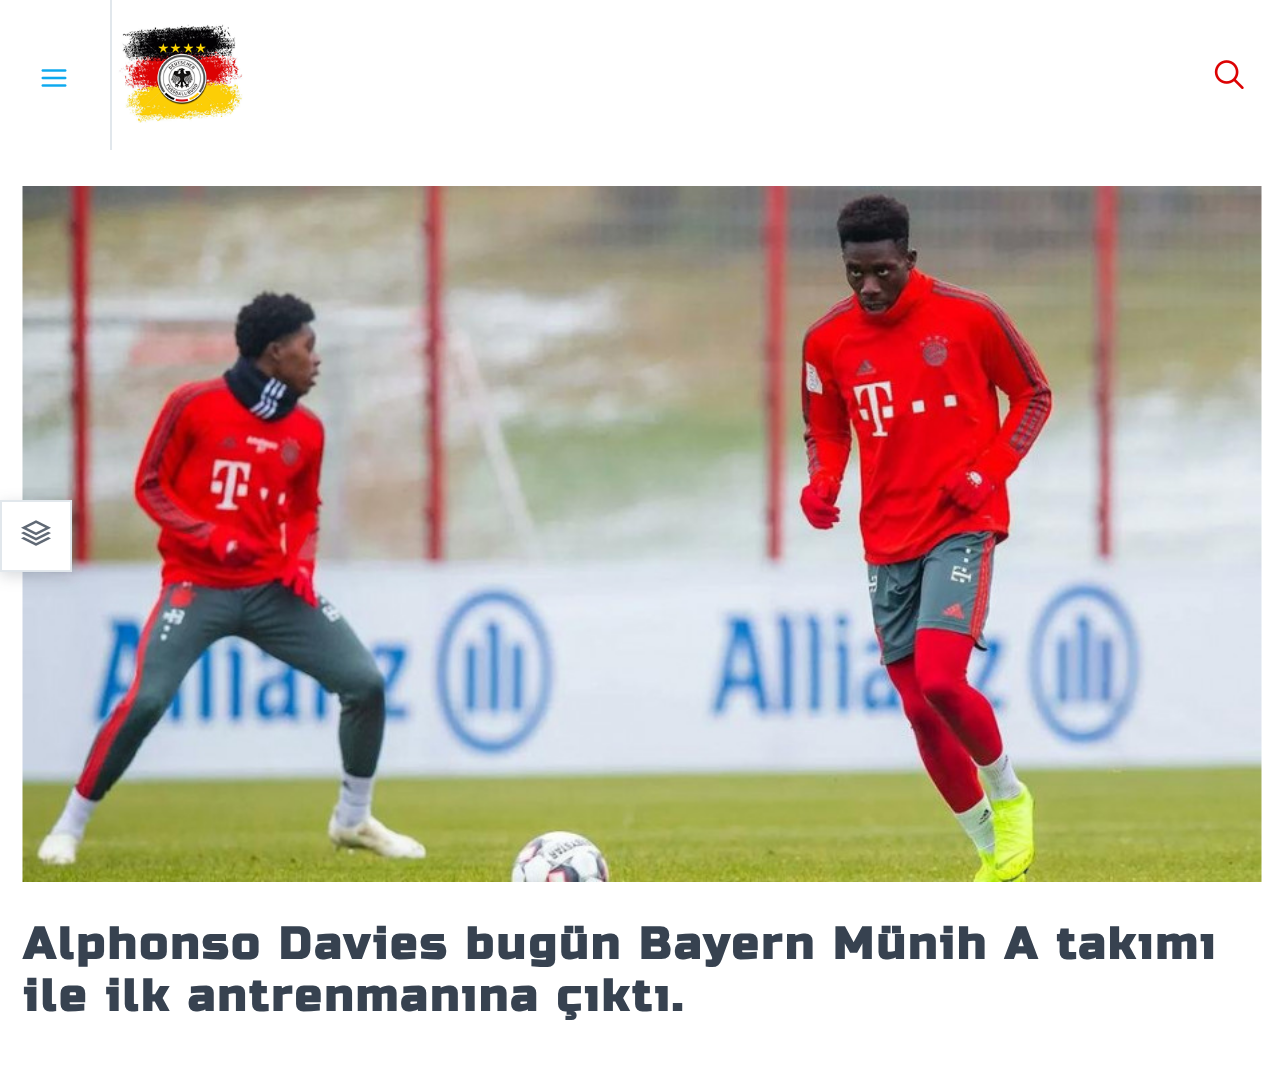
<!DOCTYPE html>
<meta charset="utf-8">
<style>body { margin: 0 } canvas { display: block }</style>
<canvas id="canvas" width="1283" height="1070"></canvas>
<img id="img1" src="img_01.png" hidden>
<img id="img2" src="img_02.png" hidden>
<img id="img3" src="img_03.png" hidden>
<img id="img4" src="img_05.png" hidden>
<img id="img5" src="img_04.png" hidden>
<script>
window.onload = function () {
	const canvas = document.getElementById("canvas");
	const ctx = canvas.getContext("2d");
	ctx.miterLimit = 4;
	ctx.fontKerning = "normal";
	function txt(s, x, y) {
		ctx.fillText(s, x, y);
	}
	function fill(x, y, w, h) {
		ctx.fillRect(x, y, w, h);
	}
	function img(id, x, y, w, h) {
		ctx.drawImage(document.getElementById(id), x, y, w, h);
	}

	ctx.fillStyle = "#FFFFFF";
	fill(0, 0, 1283, 1070);
	ctx.fillStyle = "#E1E7EC";
	fill(110, 0, 2, 150);
	img("img1", 41, 69, 26, 18);
	img("img2", 118, 24, 125, 99);
	img("img3", 1214, 60, 30, 29);
	img("img4", 22, 186, 1240, 696);
	ctx.fillStyle = "rgba(55, 66, 80, 0.2)";
	ctx.filter = "blur(7.5px)";
	ctx.beginPath();
	ctx.rect(0, 504, 72, 72);
	ctx.fill();
	ctx.filter = "none";
	ctx.fillStyle = "#FFFFFF";
	ctx.beginPath();
	ctx.rect(1, 501, 70, 70);
	ctx.fill();
	ctx.strokeStyle = "#E1E7EC";
	ctx.lineWidth = 2;
	ctx.stroke();
	img("img5", 21, 520, 30, 26);
	ctx.letterSpacing = "3px";
	ctx.font = "bold 45px Russo One";
	ctx.fillStyle = "#374250";
	txt("Alphonso Davies bugün Bayern Münih A takımı", 23, 959);
	txt("ile ilk antrenmanına çıktı.", 23, 1011);
};
</script>
